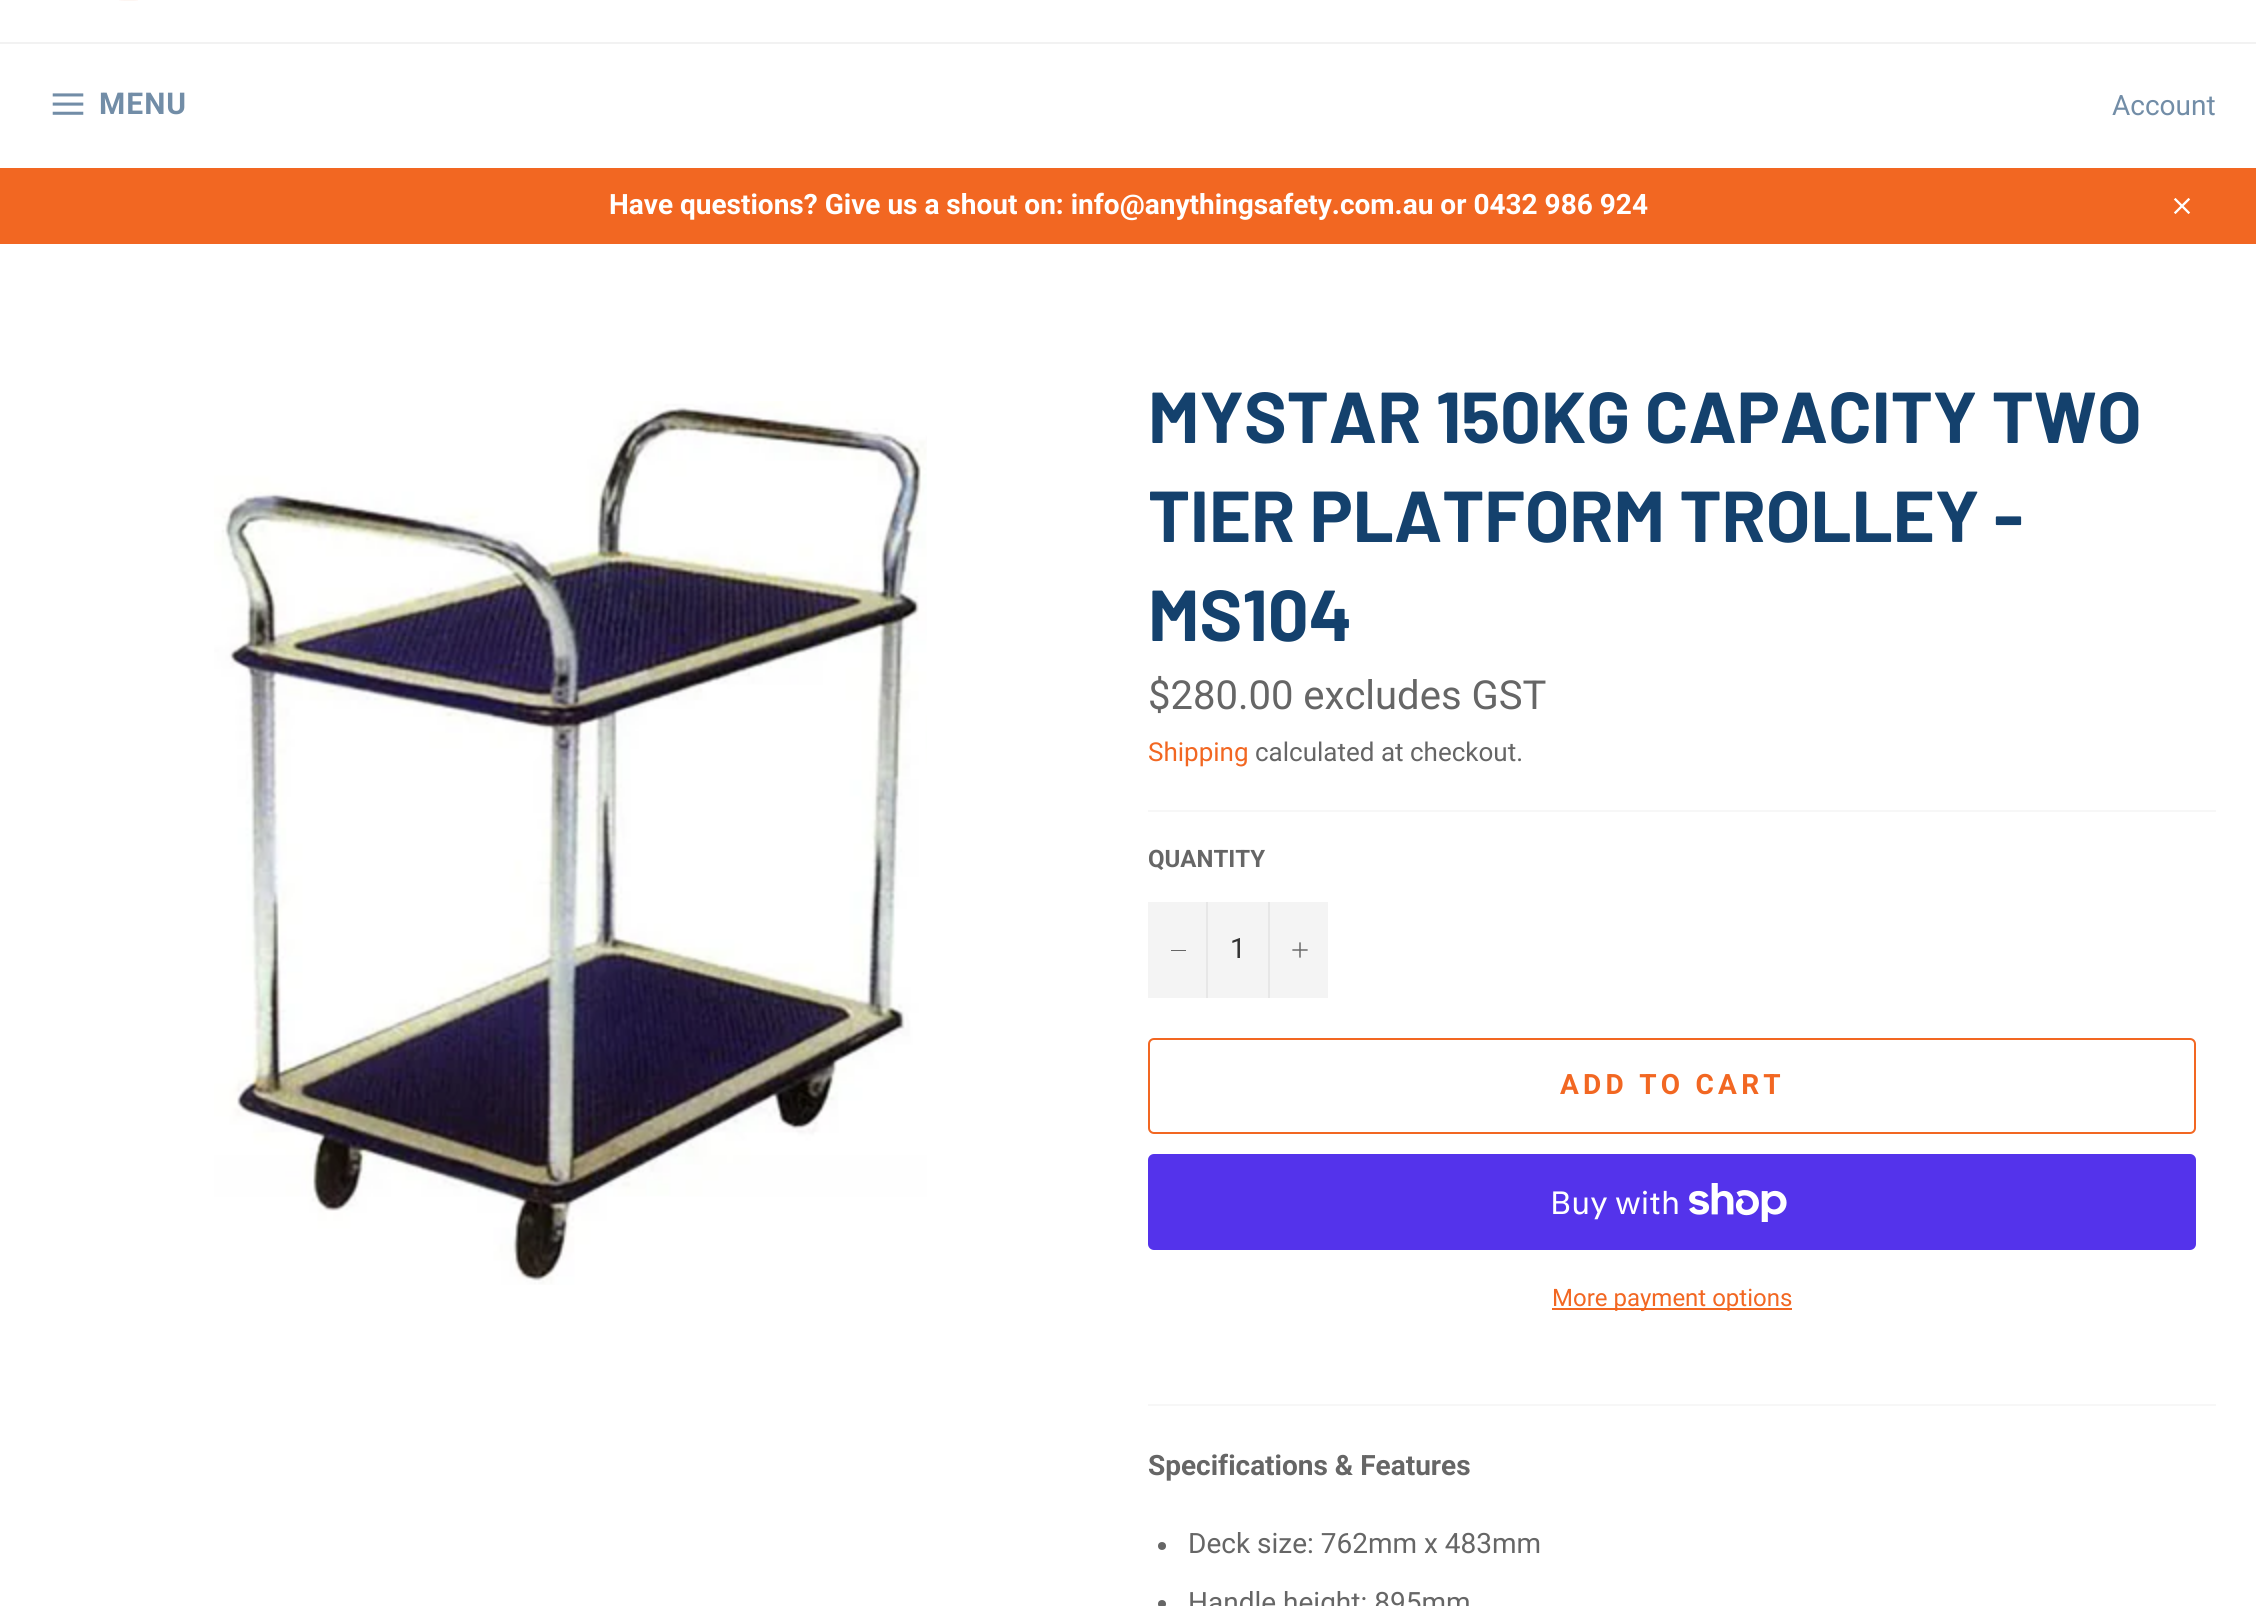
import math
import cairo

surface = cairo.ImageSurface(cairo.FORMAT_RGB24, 2256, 1606)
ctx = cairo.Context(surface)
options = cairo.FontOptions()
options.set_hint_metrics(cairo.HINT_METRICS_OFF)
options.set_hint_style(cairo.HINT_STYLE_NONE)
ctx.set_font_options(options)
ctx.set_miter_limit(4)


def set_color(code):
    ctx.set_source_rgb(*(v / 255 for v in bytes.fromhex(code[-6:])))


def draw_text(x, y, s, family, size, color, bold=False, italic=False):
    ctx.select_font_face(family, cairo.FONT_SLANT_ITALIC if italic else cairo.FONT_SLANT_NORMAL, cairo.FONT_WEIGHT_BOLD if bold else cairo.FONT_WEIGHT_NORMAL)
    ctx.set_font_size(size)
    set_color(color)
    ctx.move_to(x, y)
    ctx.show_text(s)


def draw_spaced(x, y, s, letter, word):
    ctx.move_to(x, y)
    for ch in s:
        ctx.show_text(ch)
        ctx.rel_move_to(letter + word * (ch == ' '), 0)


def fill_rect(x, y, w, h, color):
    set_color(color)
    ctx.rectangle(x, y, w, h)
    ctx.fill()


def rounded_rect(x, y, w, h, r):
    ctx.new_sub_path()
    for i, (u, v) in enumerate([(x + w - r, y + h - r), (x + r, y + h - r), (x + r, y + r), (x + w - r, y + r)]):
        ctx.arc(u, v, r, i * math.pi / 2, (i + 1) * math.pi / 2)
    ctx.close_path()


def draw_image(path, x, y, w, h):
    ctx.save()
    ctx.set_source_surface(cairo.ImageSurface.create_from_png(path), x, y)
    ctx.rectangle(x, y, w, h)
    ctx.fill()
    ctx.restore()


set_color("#ffffff")
ctx.paint()
draw_image("assets/img1.png", 119, 0, 19, 1)
fill_rect(0, 42, 2256, 2, "#f2f2f2")
draw_image("assets/img2.png", 52, 93, 32, 22)
ctx.select_font_face("Roboto", cairo.FONT_SLANT_NORMAL, cairo.FONT_WEIGHT_BOLD)
ctx.set_font_size(30)
set_color("#728da7")
draw_spaced(99, 114, "MENU", 1, 0)
draw_text(2112, 115, "Account", "Roboto", 28, "#728da7")
fill_rect(0, 168, 2256, 76, "#f26722")
draw_text(609, 214, "Have questions? Give us a shout on: info@anythingsafety.com.au or 0432 986 924", "Roboto", 28, "#ffffff", bold=True)
draw_image("assets/img3.png", 2173, 198, 18, 16)
draw_image("assets/img4.png", 214, 401, 713, 884)
draw_text(1148, 443, "MYSTAR 150KG CAPACITY TWO", "Barlow", 72, "#14416d", bold=True)
draw_text(1148, 542, "TIER PLATFORM TROLLEY -", "Barlow", 72, "#14416d", bold=True)
draw_text(1148, 641, "MS104", "Barlow", 72, "#14416d", bold=True)
draw_text(1148, 709, "$280.00 excludes GST", "Roboto", 40, "#666666")
draw_text(1148, 761, "Shipping", "Roboto", 26, "#f26722")
draw_text(1255, 761, "calculated at checkout.", "Roboto", 26, "#666666")
fill_rect(1148, 810, 1068, 2, "#f7f7f7")
draw_text(1148, 867, "QUANTITY", "Roboto", 24, "#666666", bold=True)
fill_rect(1148, 902, 180, 96, "#f4f4f4")
fill_rect(1206, 902, 2, 96, "#e7e7e7")
fill_rect(1171, 950, 15, 1, "#666666")
draw_text(1230, 958, "1", "Roboto", 28, "#333333")
fill_rect(1268, 902, 2, 96, "#e7e7e7")
draw_image("assets/img5.png", 1292, 942, 16, 16)
rounded_rect(1149, 1039, 1046, 94, 5)
set_color("#f26722")
ctx.stroke()
ctx.select_font_face("Roboto", cairo.FONT_SLANT_NORMAL, cairo.FONT_WEIGHT_BOLD)
draw_spaced(1560, 1094, "ADD TO CART", 4.25, 0)
set_color("#5433eb")
rounded_rect(1148, 1154, 1048, 96, 6)
ctx.fill()
draw_text(1550, 1214, "Buy with", "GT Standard", 32, "#ffffff")
draw_image("assets/img6.png", 1689, 1183, 98, 39)
fill_rect(1552, 1308, 240, 2, "#f26722")
draw_text(1552, 1306, "More payment options", "Roboto", 24, "#f26722")
fill_rect(1148, 1404, 1068, 2, "#f7f7f7")
draw_text(1148, 1475, "Specifications & Features", "Roboto", 28, "#666666", bold=True)
ctx.new_path()
ctx.arc(1162, 1546, 4, 0, 2 * math.pi)
ctx.fill()
draw_text(1188, 1553, "Deck size: 762mm x 483mm", "Roboto", 28, "#666666")
ctx.new_path()
ctx.arc(1162, 1604, 4, 0, 2 * math.pi)
ctx.fill()
draw_text(1188, 1612, "Handle height: 895mm", "Roboto", 28, "#666666")
surface.write_to_png("output.png")
